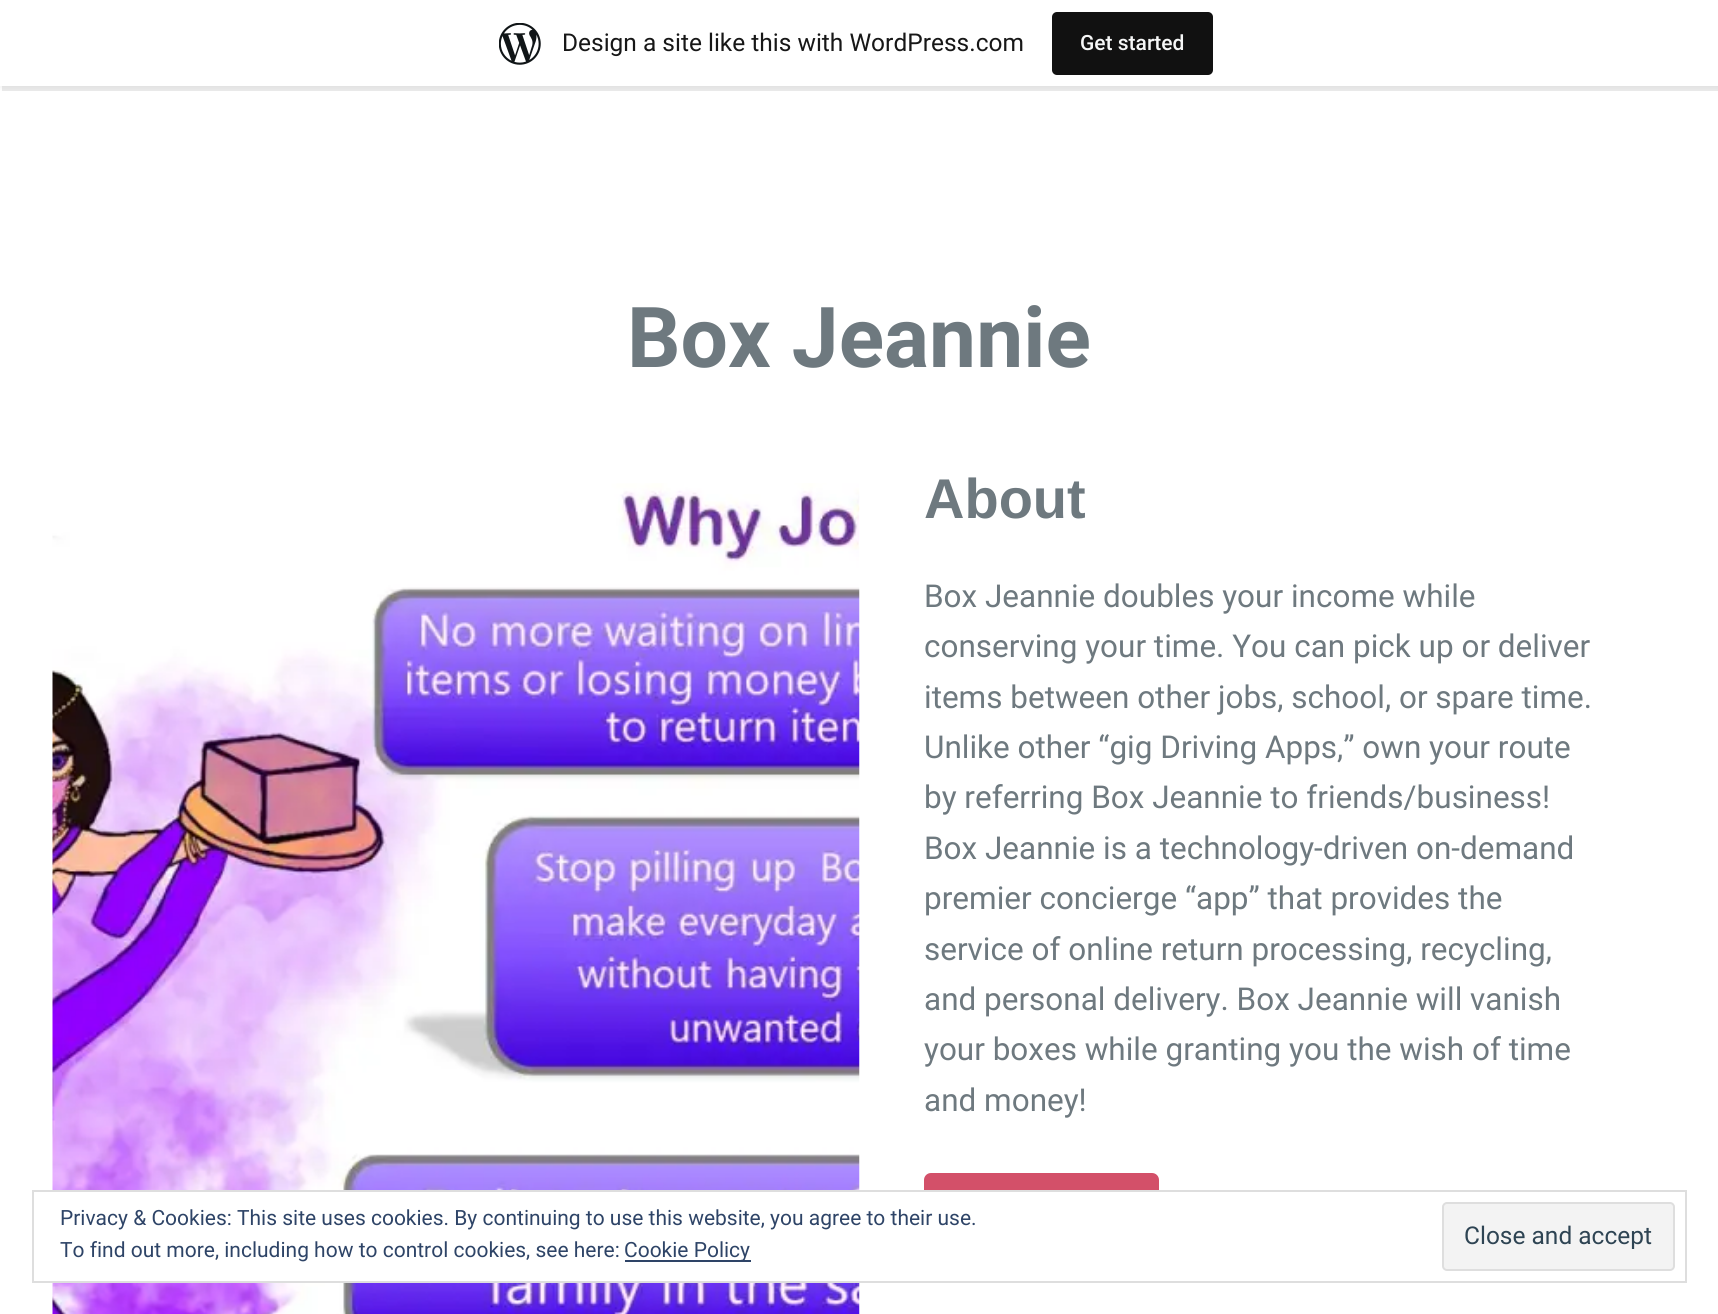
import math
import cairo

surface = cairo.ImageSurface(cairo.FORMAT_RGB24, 1718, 1314)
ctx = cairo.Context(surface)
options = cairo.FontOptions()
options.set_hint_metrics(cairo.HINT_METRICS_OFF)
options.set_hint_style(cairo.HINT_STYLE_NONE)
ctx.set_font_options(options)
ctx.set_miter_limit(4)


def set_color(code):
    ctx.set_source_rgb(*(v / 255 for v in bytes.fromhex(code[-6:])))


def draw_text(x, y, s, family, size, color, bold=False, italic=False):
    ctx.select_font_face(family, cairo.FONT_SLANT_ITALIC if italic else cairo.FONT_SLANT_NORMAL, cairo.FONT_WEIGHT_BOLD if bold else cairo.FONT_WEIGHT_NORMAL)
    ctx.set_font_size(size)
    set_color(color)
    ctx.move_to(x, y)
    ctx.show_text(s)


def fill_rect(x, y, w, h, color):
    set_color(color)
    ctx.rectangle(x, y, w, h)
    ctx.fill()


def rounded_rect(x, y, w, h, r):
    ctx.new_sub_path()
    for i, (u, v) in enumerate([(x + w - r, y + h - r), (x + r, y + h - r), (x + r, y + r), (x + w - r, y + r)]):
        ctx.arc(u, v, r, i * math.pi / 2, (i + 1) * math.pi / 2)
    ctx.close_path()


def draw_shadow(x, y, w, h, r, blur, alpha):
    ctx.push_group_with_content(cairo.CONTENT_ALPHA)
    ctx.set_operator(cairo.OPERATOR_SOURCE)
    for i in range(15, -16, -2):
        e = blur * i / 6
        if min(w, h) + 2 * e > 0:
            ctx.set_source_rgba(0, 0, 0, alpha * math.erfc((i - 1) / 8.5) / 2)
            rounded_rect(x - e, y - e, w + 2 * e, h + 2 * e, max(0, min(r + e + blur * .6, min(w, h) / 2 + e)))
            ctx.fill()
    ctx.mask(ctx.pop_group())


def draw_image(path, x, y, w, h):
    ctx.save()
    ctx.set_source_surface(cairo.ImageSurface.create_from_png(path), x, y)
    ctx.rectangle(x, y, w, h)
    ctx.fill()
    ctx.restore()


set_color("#ffffff")
ctx.paint()
set_color("#000000")
draw_shadow(0, 2, 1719, 86, 0, 2, 0.05)
ctx.set_source_rgba(0, 0, 0, 0.08)
ctx.new_path()
ctx.move_to(2, 86)
ctx.line_to(2, 91)
ctx.line_to(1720, 91)
ctx.line_to(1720, 5)
ctx.line_to(1718, 5)
ctx.line_to(1718, 86)
ctx.close_path()
ctx.fill()
fill_rect(0, 0, 1718, 86, "#ffffff")
draw_image("assets/img1.png", 499, 23, 42, 42)
draw_text(562, 51, "Design a site like this with WordPress.com", "Roboto", 24.5, "#171717")
set_color("#111111")
rounded_rect(1052, 12, 161, 63, 5)
ctx.fill()
draw_text(1080, 50, "Get started", "Roboto Medium", 21, "#f6f7f7")
draw_text(627, 367, "Box Jeannie", "Roboto", 84, "#6e797f", bold=True)
draw_image("assets/img2.png", 52, 483, 808, 831)
draw_text(924, 518, "About", "Liberation Sans", 56, "#6e797f", bold=True)
draw_text(924, 607, "Box Jeannie doubles your income while", "Roboto", 31.5, "#6e797f")
draw_text(924, 657, "conserving your time. You can pick up or deliver", "Roboto", 31.5, "#6e797f")
draw_text(924, 708, "items between other jobs, school, or spare time.", "Roboto", 31.5, "#6e797f")
draw_text(924, 758, "Unlike other “gig Driving Apps,” own your route", "Roboto", 31.5, "#6e797f")
draw_text(924, 808, "by referring Box Jeannie to friends/business!", "Roboto", 31.5, "#6e797f")
draw_text(924, 859, "Box Jeannie is a technology-driven on-demand", "Roboto", 31.5, "#6e797f")
draw_text(924, 909, "premier concierge “app” that provides the", "Roboto", 31.5, "#6e797f")
draw_text(924, 960, "service of online return processing, recycling,", "Roboto", 31.5, "#6e797f")
draw_text(924, 1010, "and personal delivery. Box Jeannie will vanish", "Roboto", 31.5, "#6e797f")
draw_text(924, 1060, "your boxes while granting you the wish of time", "Roboto", 31.5, "#6e797f")
draw_text(924, 1111, "and money!", "Roboto", 31.5, "#6e797f")
set_color("#d35069")
rounded_rect(924, 1173, 235, 105, 7)
ctx.fill()
fill_rect(52, 1192, 1107, 89, "#ffffff")
ctx.rectangle(33, 1191, 1653, 91)
set_color("#dedede")
ctx.stroke()
draw_text(60, 1225, "Privacy & Cookies: This site uses cookies. By continuing to use this website, you agree to their use.", "Roboto", 21, "#2e4467")
set_color("#f3f3f3")
rounded_rect(1443, 1203, 231, 67, 4)
ctx.fill_preserve()
set_color("#dedede")
ctx.stroke()
draw_text(1464, 1244, "Close and accept", "Roboto", 24.5, "#2e4453")
draw_text(60, 1257, "To find out more, including how to control cookies, see here:", "Roboto", 21, "#2e4467")
fill_rect(625, 1260, 126, 2, "#2e4467")
draw_text(624, 1257, "Cookie Policy", "Roboto", 21, "#2e4467")
surface.write_to_png("output.png")
